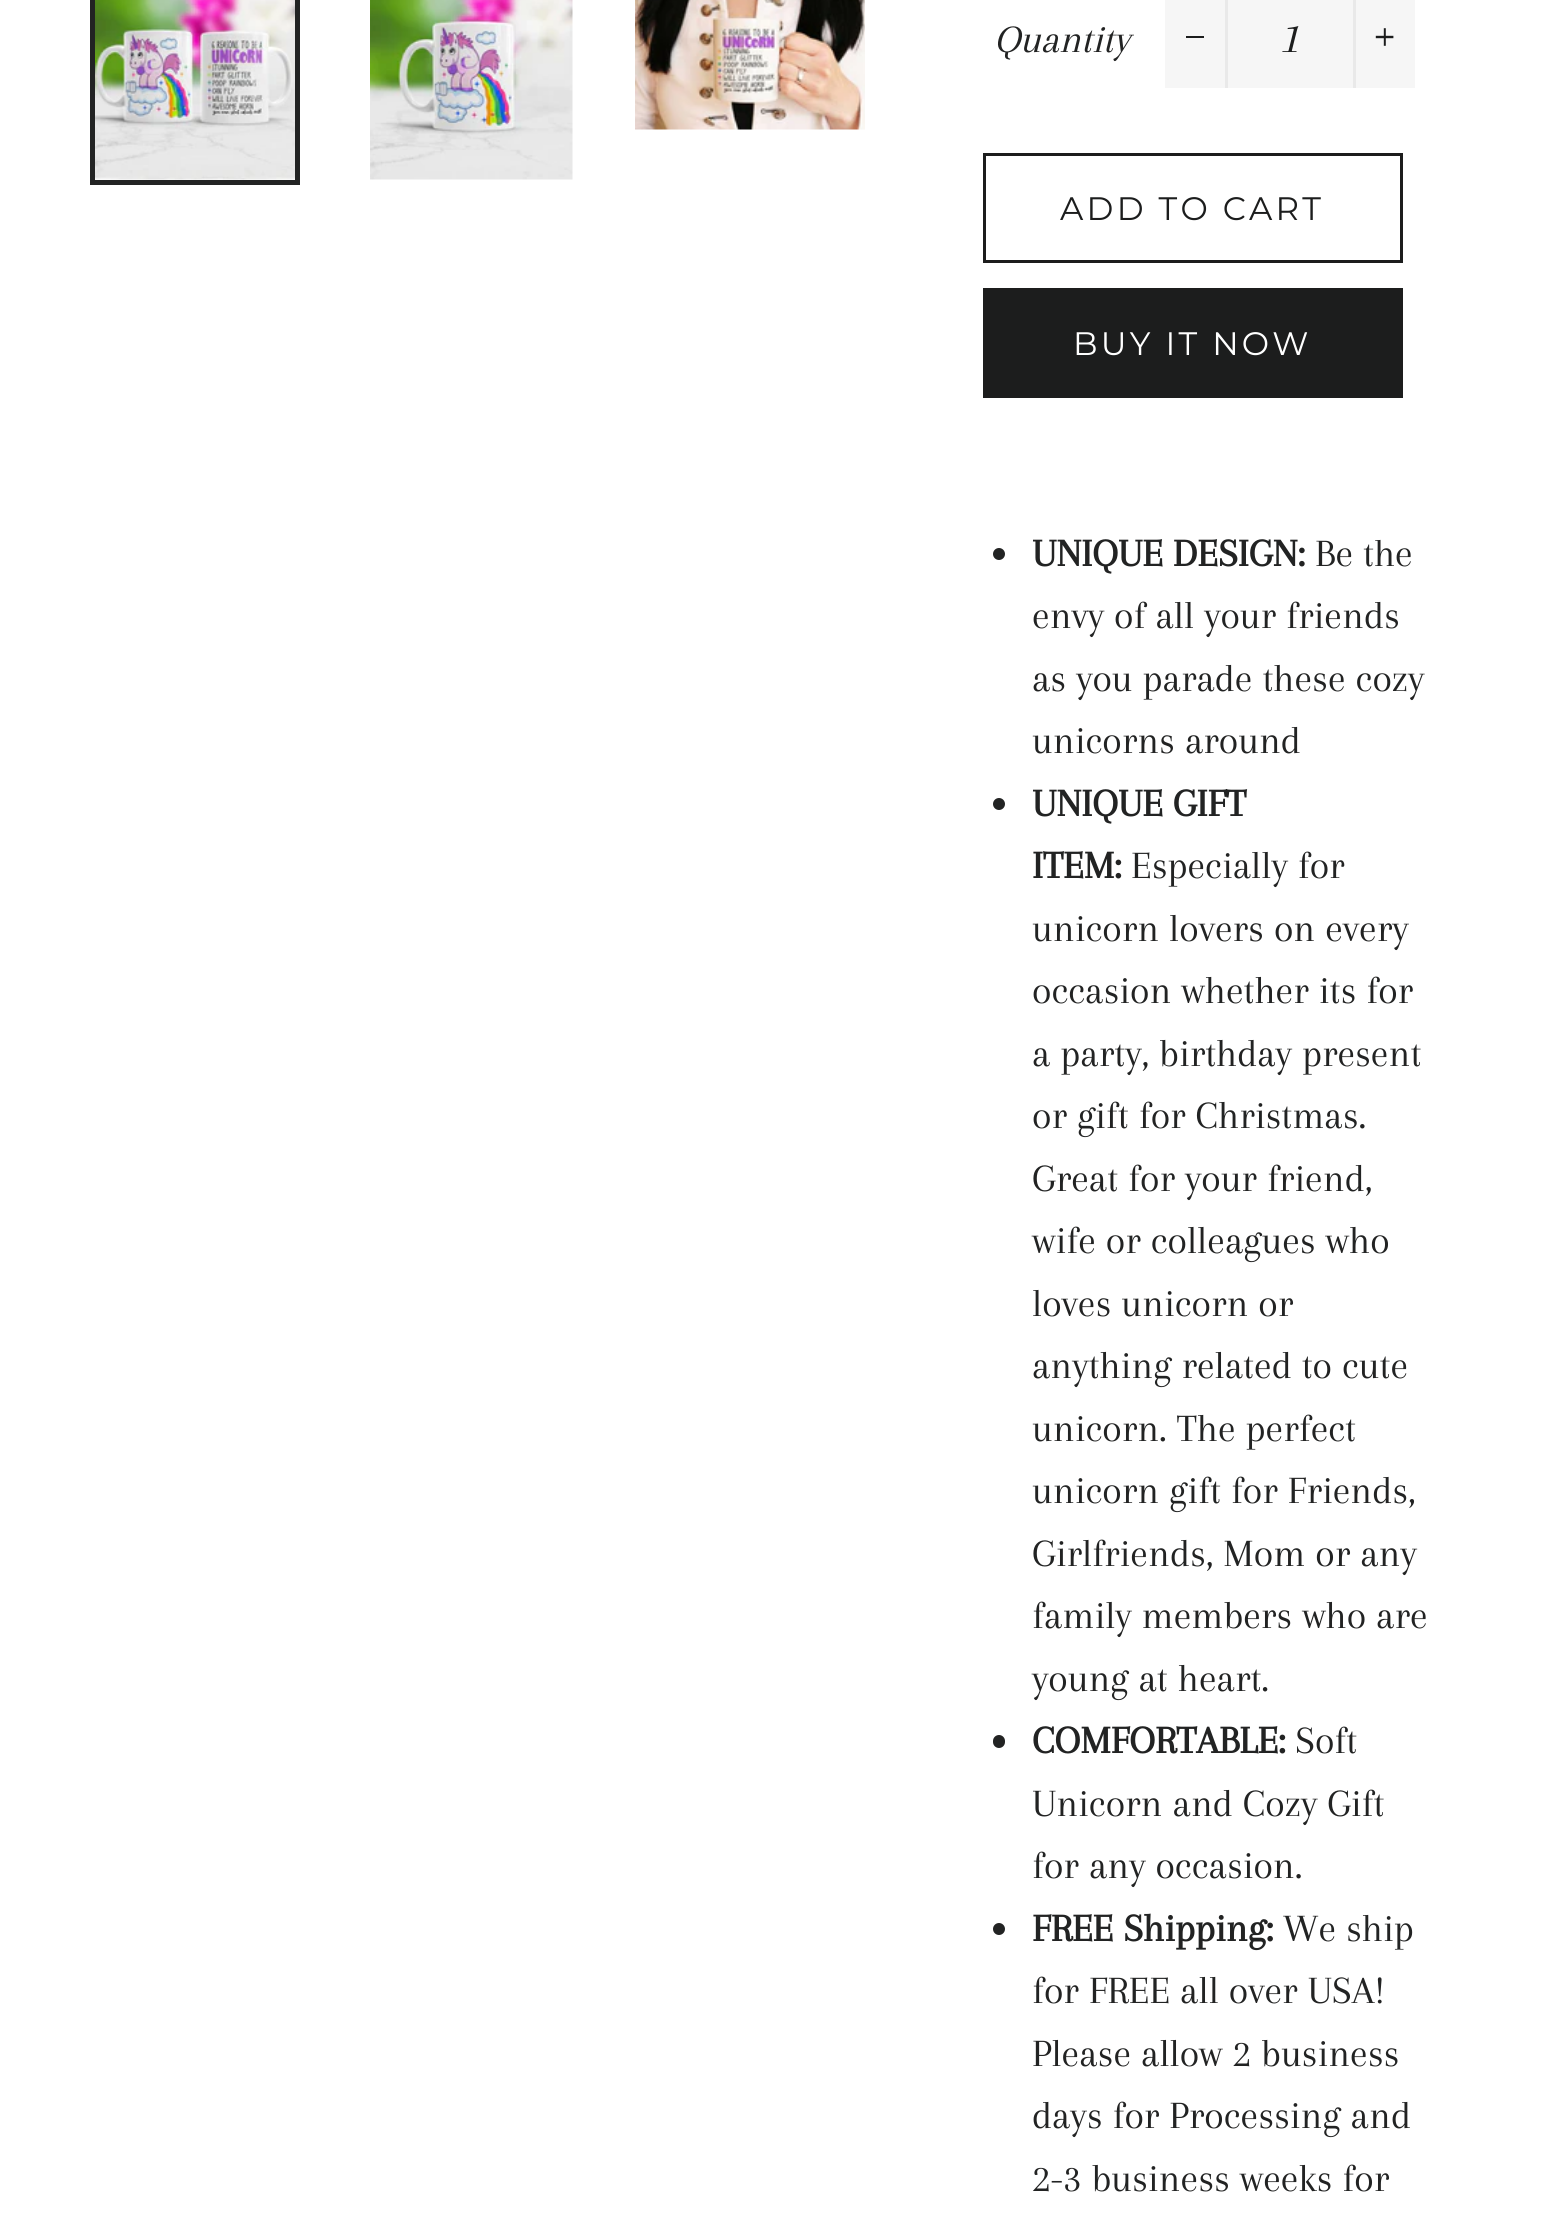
import math
import cairo

surface = cairo.ImageSurface(cairo.FORMAT_RGB24, 1564, 2225)
ctx = cairo.Context(surface)
options = cairo.FontOptions()
options.set_hint_metrics(cairo.HINT_METRICS_OFF)
options.set_hint_style(cairo.HINT_STYLE_NONE)
ctx.set_font_options(options)
ctx.set_miter_limit(4)


def set_color(code):
    ctx.set_source_rgb(*(v / 255 for v in bytes.fromhex(code[-6:])))


def draw_text(x, y, s, family, size, color, bold=False, italic=False):
    ctx.select_font_face(family, cairo.FONT_SLANT_ITALIC if italic else cairo.FONT_SLANT_NORMAL, cairo.FONT_WEIGHT_BOLD if bold else cairo.FONT_WEIGHT_NORMAL)
    ctx.set_font_size(size)
    set_color(color)
    ctx.move_to(x, y)
    ctx.show_text(s)


def draw_spaced(x, y, s, letter, word):
    ctx.move_to(x, y)
    for ch in s:
        ctx.show_text(ch)
        ctx.rel_move_to(letter + word * (ch == ' '), 0)


def fill_rect(x, y, w, h, color):
    set_color(color)
    ctx.rectangle(x, y, w, h)
    ctx.fill()


def rounded_rect(x, y, w, h, r):
    ctx.new_sub_path()
    for i, (u, v) in enumerate([(x + w - r, y + h - r), (x + r, y + h - r), (x + r, y + r), (x + w - r, y + r)]):
        ctx.arc(u, v, r, i * math.pi / 2, (i + 1) * math.pi / 2)
    ctx.close_path()


def draw_image(path, x, y, w, h):
    ctx.save()
    ctx.set_source_surface(cairo.ImageSurface.create_from_png(path), x, y)
    ctx.rectangle(x, y, w, h)
    ctx.fill()
    ctx.restore()


set_color("#ffffff")
ctx.paint()
ctx.rectangle(92.5, -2.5, 205, 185)
set_color("#222323")
ctx.set_line_width(5)
ctx.stroke()
draw_image("assets/img1.png", 95, 0, 200, 180)
draw_image("assets/img2.png", 370, 0, 203, 180)
draw_image("assets/img3.png", 635, 0, 230, 130)
draw_text(994, 52, "Quantity", "Arapey", 40, "#222323", italic=True)
fill_rect(1165, 0, 250, 88, "#f6f6f6")
fill_rect(1225, 0, 3, 88, "#e9e9e9")
fill_rect(1186, 36, 18, 2, "#1c1d1d")
draw_text(1279, 52, "1", "Arapey", 45, "#1c1d1d", italic=True)
fill_rect(1353, 0, 3, 88, "#e9e9e9")
draw_image("assets/img4.png", 1375, 28, 19, 18)
ctx.rectangle(984.5, 154.5, 417, 107)
set_color("#1c1d1d")
ctx.set_line_width(3)
ctx.stroke()
ctx.select_font_face("Montserrat Thin")
ctx.set_font_size(32.5)
draw_spaced(1060, 220, "ADD TO CART", 3.25, 0)
fill_rect(983, 288, 420, 110, "#1c1d1d")
set_color("#ffffff")
draw_spaced(1073, 355, "BUY IT NOW", 3.25, 0)
set_color("#222323")
ctx.new_path()
ctx.arc(999, 554, 6, 0, 2 * math.pi)
ctx.fill()
draw_text(1032, 566, "UNIQUE DESIGN:", "Arapey", 40, "#222323", bold=True)
draw_text(1315, 566, "Be the", "Arapey", 40, "#222323")
draw_text(1032, 628, "envy of all your friends", "Arapey", 40, "#222323")
draw_text(1032, 691, "as you parade these cozy", "Arapey", 40, "#222323")
draw_text(1032, 753, "unicorns around", "Arapey", 40, "#222323")
ctx.new_path()
ctx.arc(999, 804, 6, 0, 2 * math.pi)
ctx.fill()
draw_text(1032, 816, "UNIQUE GIFT", "Arapey", 40, "#222323", bold=True)
draw_text(1032, 878, "ITEM:", "Arapey", 40, "#222323", bold=True)
draw_text(1131, 878, "Especially for", "Arapey", 40, "#222323")
draw_text(1032, 941, "unicorn lovers on every", "Arapey", 40, "#222323")
draw_text(1032, 1003, "occasion whether its for", "Arapey", 40, "#222323")
draw_text(1032, 1066, "a party, birthday present", "Arapey", 40, "#222323")
draw_text(1032, 1128, "or gift for Christmas.", "Arapey", 40, "#222323")
draw_text(1032, 1191, "Great for your friend,", "Arapey", 40, "#222323")
draw_text(1032, 1253, "wife or colleagues who", "Arapey", 40, "#222323")
draw_text(1032, 1316, "loves unicorn or", "Arapey", 40, "#222323")
draw_text(1032, 1378, "anything related to cute", "Arapey", 40, "#222323")
draw_text(1032, 1441, "unicorn. The perfect", "Arapey", 40, "#222323")
draw_text(1032, 1503, "unicorn gift for Friends,", "Arapey", 40, "#222323")
draw_text(1032, 1566, "Girlfriends, Mom or any", "Arapey", 40, "#222323")
draw_text(1032, 1628, "family members who are", "Arapey", 40, "#222323")
draw_text(1032, 1691, "young at heart.", "Arapey", 40, "#222323")
rounded_rect(993, 1735, 12, 13, 6)
ctx.fill()
draw_text(1032, 1753, "COMFORTABLE:", "Arapey", 40, "#222323", bold=True)
draw_text(1295, 1753, "Soft", "Arapey", 40, "#222323")
draw_text(1032, 1816, "Unicorn and Cozy Gift", "Arapey", 40, "#222323")
draw_text(1032, 1878, "for any occasion.", "Arapey", 40, "#222323")
ctx.new_path()
ctx.arc(999, 1929, 6, 0, 2 * math.pi)
ctx.fill()
draw_text(1032, 1941, "FREE Shipping:", "Arapey", 40, "#222323", bold=True)
draw_text(1283, 1941, "We ship", "Arapey", 40, "#222323")
draw_text(1032, 2003, "for FREE all over USA!", "Arapey", 40, "#222323")
draw_text(1032, 2066, "Please allow 2 business", "Arapey", 40, "#222323")
draw_text(1032, 2128, "days for Processing and", "Arapey", 40, "#222323")
draw_text(1032, 2191, "2-3 business weeks for", "Arapey", 40, "#222323")
surface.write_to_png("output.png")
